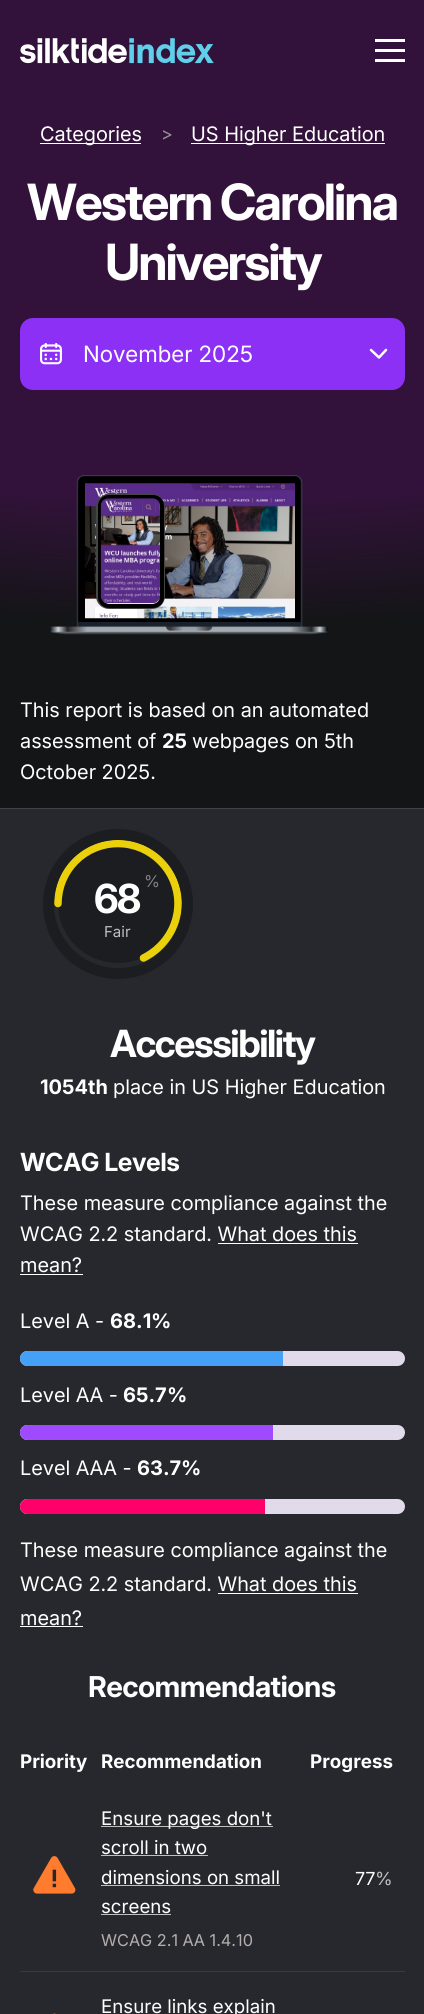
import math
import cairo

surface = cairo.ImageSurface(cairo.FORMAT_RGB24, 424, 2014)
ctx = cairo.Context(surface)
options = cairo.FontOptions()
options.set_hint_metrics(cairo.HINT_METRICS_OFF)
options.set_hint_style(cairo.HINT_STYLE_NONE)
ctx.set_font_options(options)
ctx.set_miter_limit(4)


def set_color(code):
    ctx.set_source_rgb(*(v / 255 for v in bytes.fromhex(code[-6:])))


def draw_text(x, y, s, family, size, color, bold=False, italic=False):
    ctx.select_font_face(family, cairo.FONT_SLANT_ITALIC if italic else cairo.FONT_SLANT_NORMAL, cairo.FONT_WEIGHT_BOLD if bold else cairo.FONT_WEIGHT_NORMAL)
    ctx.set_font_size(size)
    set_color(color)
    ctx.move_to(x, y)
    ctx.show_text(s)


def draw_spaced(x, y, s, letter, word):
    ctx.move_to(x, y)
    for ch in s:
        ctx.show_text(ch)
        ctx.rel_move_to(letter + word * (ch == ' '), 0)


def fill_rect(x, y, w, h, color):
    set_color(color)
    ctx.rectangle(x, y, w, h)
    ctx.fill()


def rounded_rect(x, y, w, h, r):
    ctx.new_sub_path()
    for i, (u, v) in enumerate([(x + w - r, y + h - r), (x + r, y + h - r), (x + r, y + r), (x + w - r, y + r)]):
        ctx.arc(u, v, r, i * math.pi / 2, (i + 1) * math.pi / 2)
    ctx.close_path()


def draw_image(path, x, y, w, h):
    ctx.save()
    ctx.set_source_surface(cairo.ImageSurface.create_from_png(path), x, y)
    ctx.rectangle(x, y, w, h)
    ctx.fill()
    ctx.restore()


set_color("#ffffff")
ctx.paint()
gradient = cairo.RadialGradient(0, 0, 0, 0, 0, 1)
gradient.set_matrix(cairo.Matrix(1 / 1250, 0, 0, 1 / 625, -1 * 213 / 1250, -1 * 0 / 625))
gradient.add_color_stop_rgba(0, 0.196, 0.071, 0.227, 1)
gradient.add_color_stop_rgba(0.8, 0.196, 0.071, 0.227, 1)
gradient.add_color_stop_rgba(1, 0.078, 0.082, 0.09, 1)
ctx.set_source(gradient)
ctx.rectangle(0, 0, 424, 808)
ctx.fill()
draw_image("assets/img1.png", 20, 38, 194, 26)
fill_rect(375, 49, 30, 3, "#ffffff")
fill_rect(375, 39, 30, 3, "#ffffff")
fill_rect(375, 59, 30, 3, "#ffffff")
fill_rect(40, 143, 101, 1, "#ffffff")
draw_text(40, 141, "Categories", "Inter", 20, "#ffffff")
draw_text(161, 140, ">", "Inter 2", 18, "#909296")
fill_rect(191, 143, 194, 1, "#ffffff")
draw_text(191, 141, "US Higher Education", "Inter", 20, "#ffffff")
ctx.select_font_face("Inter", cairo.FONT_SLANT_NORMAL, cairo.FONT_WEIGHT_BOLD)
ctx.set_font_size(50)
draw_spaced(27, 220, "Western Carolina", -2, 0)
draw_spaced(105, 280, "University", -2, 0)
set_color("#8c30f5")
rounded_rect(20, 318, 385, 72, 13)
ctx.fill()
draw_image("assets/img2.png", 40, 343, 22, 22)
draw_text(83, 362, "November 2025", "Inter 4", 22.5, "#ffffff")
ctx.new_path()
ctx.move_to(371, 350)
ctx.line_to(379, 357.5)
ctx.line_to(386, 350)
ctx.set_line_width(2.5)
ctx.set_line_cap(cairo.LINE_CAP_ROUND)
ctx.set_line_join(cairo.LINE_JOIN_ROUND)
ctx.stroke()
draw_image("assets/img3.png", 50, 475, 278, 160)
draw_image("assets/img4.png", 85, 483, 210, 136)
rounded_rect(98.5, 496.5, 64, 110, 10.5)
set_color("#454545")
ctx.set_line_width(5)
ctx.set_line_cap(cairo.LINE_CAP_BUTT)
ctx.set_line_join(cairo.LINE_JOIN_MITER)
ctx.stroke()
rounded_rect(100, 497, 62, 109, 9)
set_color("#000000")
ctx.set_line_width(4)
ctx.stroke()
draw_image("assets/img5.png", 100, 498, 60, 106)
draw_text(20, 717, "This report is based on an automated", "Inter", 20, "#ffffff")
draw_text(20, 748, "assessment of", "Inter", 20, "#ffffff")
draw_text(162, 748, "25", "Inter 2", 20, "#ffffff", bold=True)
draw_text(192, 748, "webpages on 5th", "Inter", 20, "#ffffff")
draw_text(20, 779, "October 2025.", "Inter", 20, "#ffffff")
fill_rect(0, 809, 424, 1205, "#27282d")
fill_rect(0, 808, 424, 1, "#414246")
set_color("#1c1d21")
ctx.new_path()
ctx.move_to(178, 903)
ctx.curve_to(178, 870, 151, 843, 118, 843)
ctx.curve_to(85, 843, 58, 870, 58, 903)
ctx.curve_to(58, 937, 85, 963, 118, 963)
ctx.curve_to(151, 963, 178, 937, 178, 903)
ctx.close_path()
ctx.fill()
ctx.new_path()
ctx.move_to(178, 903.5)
ctx.curve_to(178, 859.5, 131, 831, 92, 849)
set_color("#373a40")
ctx.set_line_width(7.5)
ctx.stroke()
ctx.new_path()
ctx.move_to(58, 903.5)
ctx.curve_to(58, 870.5, 84.5, 843.5, 118, 843.5)
ctx.curve_to(151, 843.5, 178, 870.5, 178, 903.5)
ctx.curve_to(178, 927.5, 163.5, 948, 143.5, 958)
set_color("#ebd10c")
ctx.set_line_cap(cairo.LINE_CAP_ROUND)
ctx.stroke()
draw_text(144, 887, "%", "Inter 2", 16.25, "#828282")
ctx.select_font_face("Inter", cairo.FONT_SLANT_NORMAL, cairo.FONT_WEIGHT_BOLD)
ctx.set_font_size(40)
set_color("#ffffff")
draw_spaced(94, 913, "68", -2, 0)
draw_text(104, 937, "Fair", "Inter 2", 15, "#bebfc0")
ctx.new_path()
ctx.arc(118, 904, 69.5, 0, 2 * math.pi)
set_color("#1c1d21")
ctx.set_line_width(11)
ctx.set_line_cap(cairo.LINE_CAP_BUTT)
ctx.stroke()
ctx.select_font_face("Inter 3", cairo.FONT_SLANT_NORMAL, cairo.FONT_WEIGHT_BOLD)
ctx.set_font_size(37.5)
set_color("#ffffff")
draw_spaced(110, 1057, "Accessibility", -1.5, 0)
draw_text(40, 1094, "1054th", "Inter 2", 20, "#ffffff", bold=True)
draw_text(113, 1094, "place in US Higher Education", "Inter", 20, "#ffffff")
ctx.select_font_face("Inter 4", cairo.FONT_SLANT_NORMAL, cairo.FONT_WEIGHT_BOLD)
ctx.set_font_size(25)
draw_spaced(20, 1171, "WCAG Levels", -0.5, 0)
draw_text(20, 1210, "These measure compliance against the", "Inter", 20, "#ffffff")
draw_text(20, 1241, "WCAG 2.2 standard. What does this", "Inter", 20, "#ffffff")
draw_text(20, 1272, "mean?", "Inter", 20, "#ffffff")
fill_rect(218, 1243, 140, 1, "#ffffff")
fill_rect(20, 1274, 63, 1, "#ffffff")
draw_text(20, 1328, "Level A -", "Inter", 20, "#ffffff")
draw_text(110, 1328, "68.1", "Inter 2", 20, "#ffffff", bold=True)
draw_text(151, 1328, "%", "Inter 2", 20, "#ffffff", bold=True)
set_color("#e1daea")
rounded_rect(20, 1351, 385, 15, 7.5)
ctx.fill()
set_color("#45a1f7")
ctx.new_path()
ctx.move_to(27.5, 1351)
ctx.line_to(283, 1351)
ctx.line_to(283, 1366)
ctx.line_to(27.5, 1366)
ctx.curve_to(23.5, 1366, 20, 1362.5, 20, 1358.5)
ctx.curve_to(20, 1354.5, 23.5, 1351, 27.5, 1351)
ctx.close_path()
ctx.fill()
draw_text(20, 1402, "Level AA -", "Inter", 20, "#ffffff")
draw_text(123, 1402, "65.7", "Inter 2", 20, "#ffffff", bold=True)
draw_text(167, 1402, "%", "Inter 2", 20, "#ffffff", bold=True)
set_color("#e1daea")
rounded_rect(20, 1425, 385, 15, 7.5)
ctx.fill()
set_color("#9f4aff")
ctx.new_path()
ctx.move_to(27.5, 1425)
ctx.line_to(273, 1425)
ctx.line_to(273, 1440)
ctx.line_to(27.5, 1440)
ctx.curve_to(23.5, 1440, 20, 1436.5, 20, 1432.5)
ctx.curve_to(20, 1428.5, 23.5, 1425, 27.5, 1425)
ctx.close_path()
ctx.fill()
draw_text(20, 1475, "Level AAA -", "Inter", 20, "#ffffff")
draw_text(137, 1475, "63.7", "Inter 2", 20, "#ffffff", bold=True)
draw_text(181, 1475, "%", "Inter 2", 20, "#ffffff", bold=True)
set_color("#e1daea")
rounded_rect(20, 1499, 385, 15, 7.5)
ctx.fill()
set_color("#ff006b")
ctx.new_path()
ctx.move_to(27.5, 1499)
ctx.line_to(265, 1499)
ctx.line_to(265, 1514)
ctx.line_to(27.5, 1514)
ctx.curve_to(23.5, 1514, 20, 1510.5, 20, 1506.5)
ctx.curve_to(20, 1502.5, 23.5, 1499, 27.5, 1499)
ctx.close_path()
ctx.fill()
draw_text(20, 1557, "These measure compliance against the", "Inter", 20, "#ffffff")
draw_text(20, 1591, "WCAG 2.2 standard. What does this", "Inter", 20, "#ffffff")
draw_text(20, 1625, "mean?", "Inter", 20, "#ffffff")
fill_rect(218, 1593, 140, 1, "#ffffff")
fill_rect(20, 1626, 63, 1, "#ffffff")
ctx.select_font_face("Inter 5", cairo.FONT_SLANT_NORMAL, cairo.FONT_WEIGHT_BOLD)
ctx.set_font_size(28.75)
draw_spaced(88, 1697, "Recommendations", -0.6, 0)
draw_text(20, 1768, "Priority", "Inter 2", 18.75, "#ffffff", bold=True)
draw_text(101, 1768, "Recommendation", "Inter 2", 18.75, "#ffffff", bold=True)
draw_text(310, 1768, "Progress", "Inter 2", 18.75, "#ffffff", bold=True)
draw_image("assets/img6.png", 33, 1856, 43, 38)
fill_rect(101, 1826, 172, 1, "#bebfc0")
draw_text(101, 1825, "Ensure pages don't", "Inter 3", 18.75, "#ffffff")
draw_text(101, 1854, "scroll in two", "Inter 3", 18.75, "#ffffff")
fill_rect(101, 1855, 107, 1, "#bebfc0")
draw_text(101, 1884, "dimensions on small", "Inter 3", 18.75, "#ffffff")
fill_rect(101, 1885, 179, 1, "#bebfc0")
draw_text(101, 1913, "screens", "Inter 3", 18.75, "#ffffff")
fill_rect(101, 1914, 70, 1, "#bebfc0")
draw_text(101, 1946, "WCAG 2.1 AA 1.4.10", "Inter 2", 16.25, "#b4aeae")
draw_text(355, 1885, "77", "Inter 2", 18, "#ffffff")
draw_text(375, 1885, "%", "Inter 2", 18, "#bebfc0")
fill_rect(20, 1971, 385, 1, "#373a40")
draw_image("assets/img7.png", 53, 2013, 3, 1)
draw_text(101, 2013, "Ensure links explain", "Inter 3", 18.75, "#ffffff")
surface.write_to_png("output.png")
